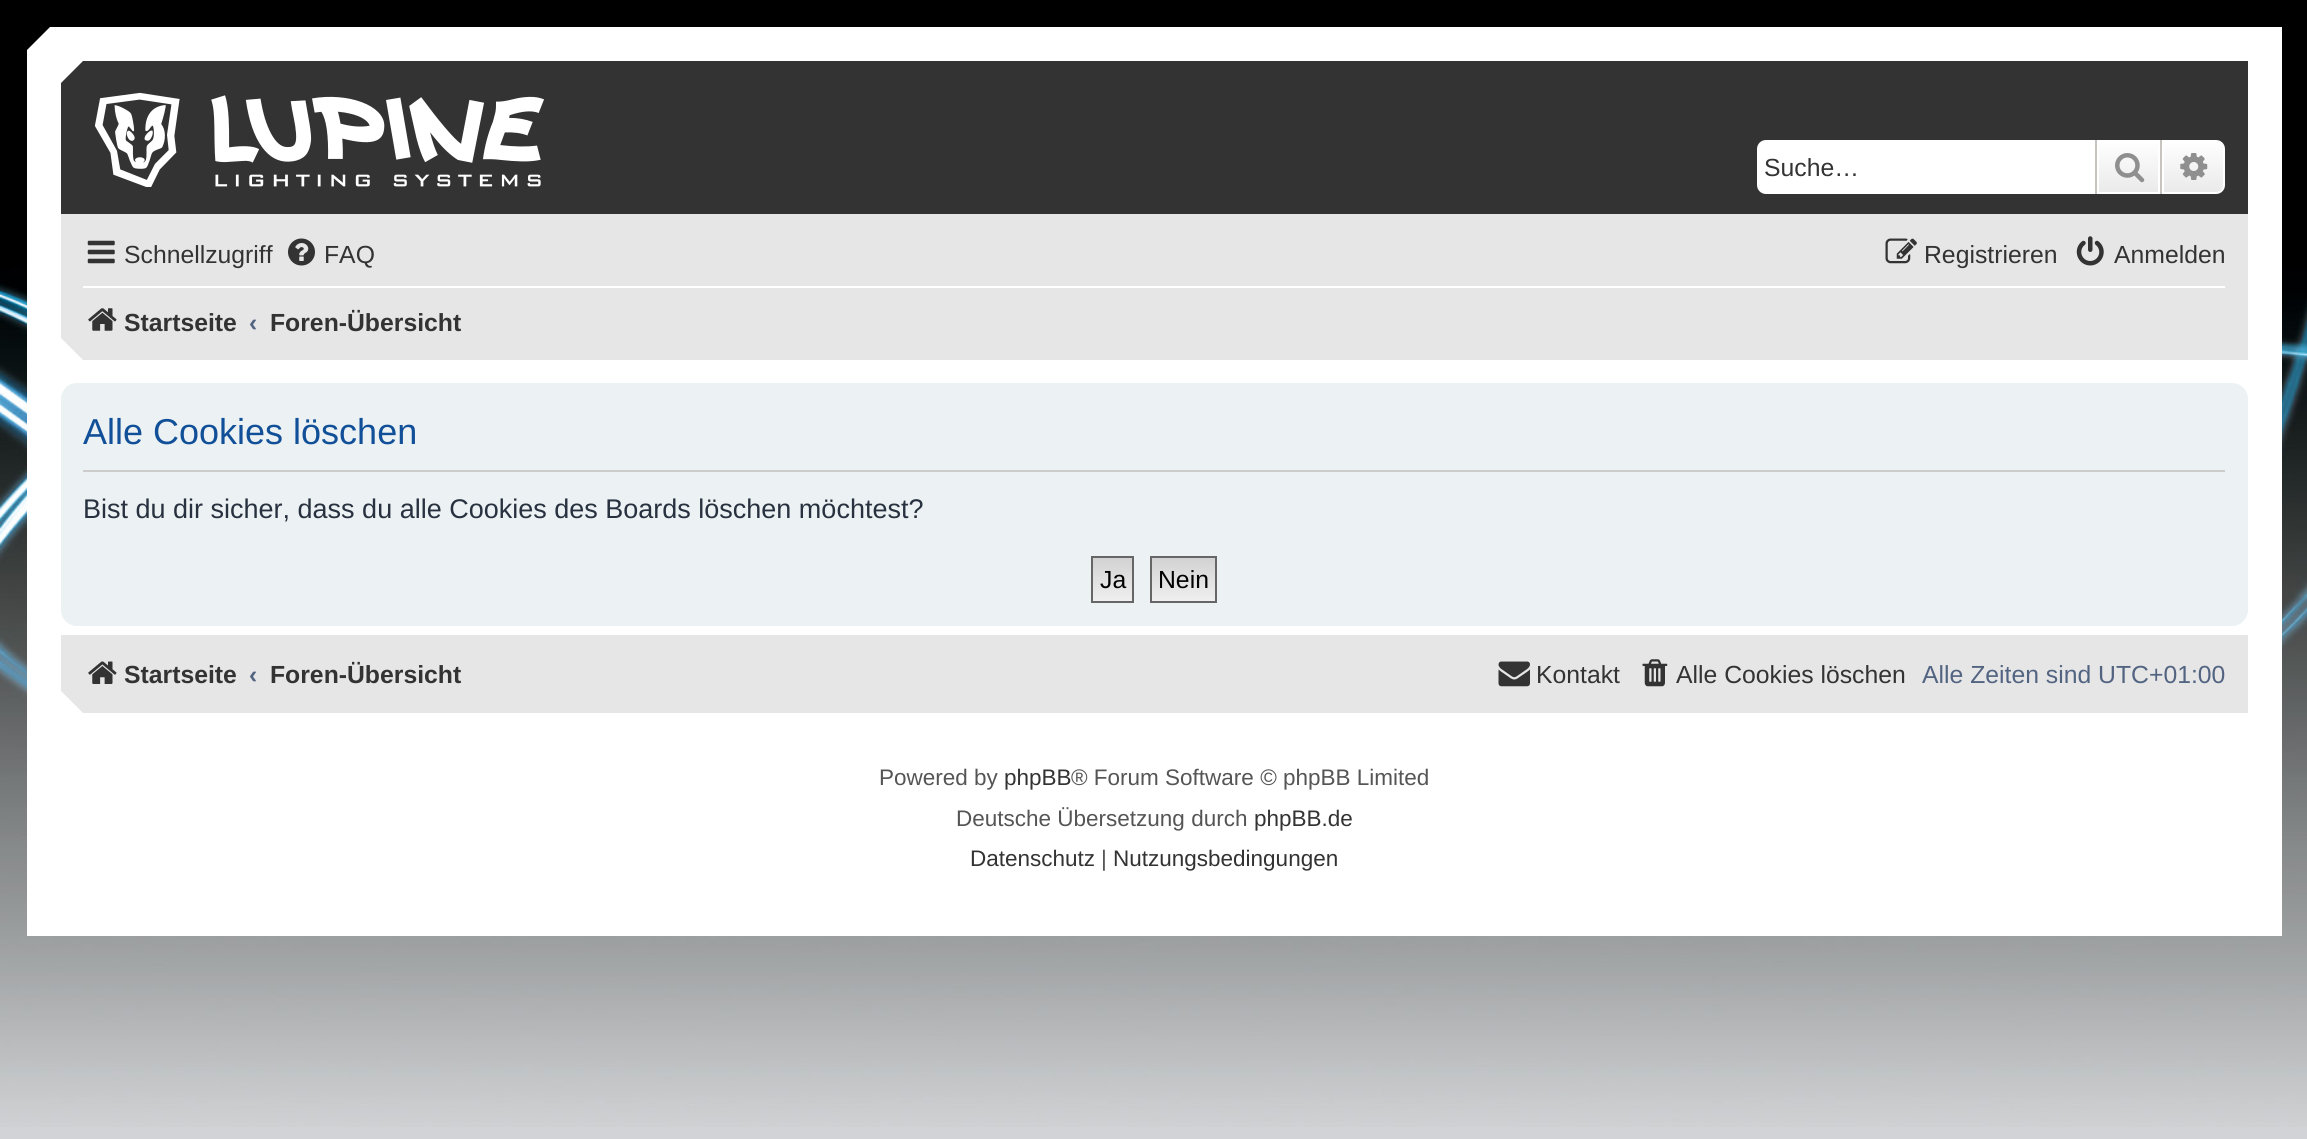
import math
import cairo

surface = cairo.ImageSurface(cairo.FORMAT_RGB24, 2307, 1139)
ctx = cairo.Context(surface)
options = cairo.FontOptions()
options.set_hint_metrics(cairo.HINT_METRICS_OFF)
options.set_hint_style(cairo.HINT_STYLE_NONE)
ctx.set_font_options(options)
ctx.set_miter_limit(4)


def set_color(code):
    ctx.set_source_rgb(*(v / 255 for v in bytes.fromhex(code[-6:])))


def draw_text(x, y, s, family, size, color, bold=False, italic=False):
    ctx.select_font_face(family, cairo.FONT_SLANT_ITALIC if italic else cairo.FONT_SLANT_NORMAL, cairo.FONT_WEIGHT_BOLD if bold else cairo.FONT_WEIGHT_NORMAL)
    ctx.set_font_size(size)
    set_color(color)
    ctx.move_to(x, y)
    ctx.show_text(s)


def fill_rect(x, y, w, h, color):
    set_color(color)
    ctx.rectangle(x, y, w, h)
    ctx.fill()


def rounded_rect(x, y, w, h, r):
    ctx.new_sub_path()
    for i, (u, v) in enumerate([(x + w - r, y + h - r), (x + r, y + h - r), (x + r, y + r), (x + w - r, y + r)]):
        ctx.arc(u, v, r, i * math.pi / 2, (i + 1) * math.pi / 2)
    ctx.close_path()


def draw_image(path, x, y, w, h):
    ctx.save()
    ctx.set_source_surface(cairo.ImageSurface.create_from_png(path), x, y)
    ctx.rectangle(x, y, w, h)
    ctx.fill()
    ctx.restore()


set_color("#d2d3d7")
ctx.paint()
draw_image("assets/img1.png", 0, 0, 2307, 1127)
ctx.save()
ctx.rectangle(27, 27, 2255, 909)
ctx.clip()
set_color("#ffffff")
ctx.new_path()
ctx.move_to(50, 27)
ctx.line_to(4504, 27)
ctx.line_to(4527, 50)
ctx.line_to(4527, 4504)
ctx.line_to(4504, 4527)
ctx.line_to(50, 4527)
ctx.line_to(27, 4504)
ctx.line_to(27, 50)
ctx.close_path()
ctx.fill()
ctx.restore()
ctx.save()
ctx.rectangle(61, 61, 2187, 153)
ctx.clip()
set_color("#333333")
ctx.new_path()
ctx.move_to(83, 61)
ctx.line_to(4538, 61)
ctx.line_to(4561, 83)
ctx.line_to(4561, 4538)
ctx.line_to(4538, 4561)
ctx.line_to(83, 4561)
ctx.line_to(61, 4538)
ctx.line_to(61, 83)
ctx.close_path()
ctx.fill()
ctx.restore()
draw_image("assets/img2.png", 95, 92, 449, 95)
set_color("#ffffff")
ctx.new_path()
ctx.move_to(1766, 140)
ctx.line_to(2095, 140)
ctx.line_to(2095, 194)
ctx.line_to(1766, 194)
ctx.curve_to(1761, 194, 1757, 190, 1757, 185)
ctx.line_to(1757, 149)
ctx.curve_to(1757, 144, 1761, 140, 1766, 140)
ctx.close_path()
ctx.fill()
draw_text(1764, 176, "Suche…", "Liberation Sans", 24.75, "#333333")
gradient = cairo.LinearGradient(2129, 140, 2129, 194)
gradient.add_color_stop_rgba(0, 1, 1, 1, 1)
gradient.add_color_stop_rgba(1, 0.914, 0.914, 0.914, 1)
ctx.set_source(gradient)
ctx.rectangle(2099, 142, 59, 50)
ctx.fill()
ctx.rectangle(2098, 141, 61, 52)
set_color("#ffffff")
ctx.stroke()
fill_rect(2160, 140, 2, 54, "#c7c3bf")
fill_rect(2095, 140, 2, 54, "#c7c3bf")
draw_image("assets/img3.png", 2115, 153, 30, 30)
gradient = cairo.LinearGradient(2194, 140, 2194, 194)
gradient.add_color_stop_rgba(0, 1, 1, 1, 1)
gradient.add_color_stop_rgba(1, 0.914, 0.914, 0.914, 1)
ctx.set_source(gradient)
ctx.new_path()
ctx.move_to(2163, 141)
ctx.line_to(2216, 141)
ctx.curve_to(2220.5, 141, 2224, 144.5, 2224, 149)
ctx.line_to(2224, 185)
ctx.curve_to(2224, 189.5, 2220.5, 193, 2216, 193)
ctx.line_to(2163, 193)
ctx.close_path()
ctx.fill_preserve()
set_color("#ffffff")
ctx.stroke()
draw_image("assets/img4.png", 2180, 153, 28, 27)
ctx.save()
ctx.rectangle(61, 214, 2187, 146)
ctx.clip()
set_color("#e6e6e6")
ctx.new_path()
ctx.move_to(83, -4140)
ctx.line_to(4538, -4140)
ctx.line_to(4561, -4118)
ctx.line_to(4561, 338)
ctx.line_to(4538, 360)
ctx.line_to(83, 360)
ctx.line_to(61, 338)
ctx.line_to(61, -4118)
ctx.close_path()
ctx.fill()
ctx.restore()
draw_image("assets/img5.png", 87, 240, 28, 24)
draw_text(124, 263, "Schnellzugriff", "Liberation Sans", 24.75, "#333333")
draw_image("assets/img6.png", 288, 238, 27, 28)
draw_text(324, 263, "FAQ", "Liberation Sans", 24.75, "#333333")
draw_image("assets/img7.png", 1885, 238, 32, 26)
draw_text(1924, 263, "Registrieren", "Liberation Sans", 24.75, "#333333")
draw_image("assets/img8.png", 2076, 236, 28, 30)
draw_text(2114, 263, "Anmelden", "Liberation Sans", 24.75, "#333333")
fill_rect(83, 286, 2142, 2, "#ffffff")
draw_image("assets/img9.png", 88, 308, 29, 23)
draw_text(124, 331, "Startseite", "Liberation Sans", 24.75, "#333333", bold=True)
draw_text(249, 331, "‹", "Liberation Sans", 24.75, "#536482", bold=True)
draw_text(270, 331, "Foren-Übersicht", "Liberation Sans", 24.75, "#333333", bold=True)
set_color("#ecf1f3")
rounded_rect(61, 383, 2187, 243, 16)
ctx.fill()
fill_rect(83, 470, 2142, 2, "#cccccc")
draw_text(83, 444, "Alle Cookies löschen", "Liberation Sans", 36, "#115098")
draw_text(83, 518, "Bist du dir sicher, dass du alle Cookies des Boards löschen möchtest?", "Liberation Sans", 27, "#28313f")
gradient = cairo.LinearGradient(1113, 558, 1113, 601)
gradient.add_color_stop_rgba(0, 0.824, 0.824, 0.824, 1)
gradient.add_color_stop_rgba(1, 0.937, 0.937, 0.937, 1)
ctx.set_source(gradient)
ctx.rectangle(1093, 558, 39, 43)
ctx.fill()
ctx.rectangle(1092, 557, 41, 45)
set_color("#666666")
ctx.stroke()
draw_text(1100, 588, "Ja", "Liberation Sans", 24.75, "#000000")
gradient = cairo.LinearGradient(1184, 558, 1184, 601)
gradient.add_color_stop_rgba(0, 0.824, 0.824, 0.824, 1)
gradient.add_color_stop_rgba(1, 0.937, 0.937, 0.937, 1)
ctx.set_source(gradient)
ctx.rectangle(1152, 558, 63, 43)
ctx.fill()
ctx.rectangle(1151, 557, 65, 45)
set_color("#666666")
ctx.stroke()
draw_text(1158, 588, "Nein", "Liberation Sans", 24.75, "#000000")
ctx.save()
ctx.rectangle(61, 635, 2187, 78)
ctx.clip()
set_color("#e6e6e6")
ctx.new_path()
ctx.move_to(83, -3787)
ctx.line_to(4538, -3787)
ctx.line_to(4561, -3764)
ctx.line_to(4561, 691)
ctx.line_to(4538, 713)
ctx.line_to(83, 713)
ctx.line_to(61, 691)
ctx.line_to(61, -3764)
ctx.close_path()
ctx.fill()
ctx.restore()
draw_image("assets/img10.png", 88, 661, 29, 23)
draw_text(124, 683, "Startseite", "Liberation Sans", 24.75, "#333333", bold=True)
draw_text(249, 683, "‹", "Liberation Sans", 24.75, "#536482", bold=True)
draw_text(270, 683, "Foren-Übersicht", "Liberation Sans", 24.75, "#333333", bold=True)
draw_image("assets/img11.png", 1498, 661, 32, 26)
draw_text(1536, 683, "Kontakt", "Liberation Sans", 24.75, "#333333")
draw_image("assets/img12.png", 1642, 659, 26, 28)
draw_text(1676, 683, "Alle Cookies löschen", "Liberation Sans", 24.75, "#333333")
draw_text(1922, 683, "Alle Zeiten sind UTC+01:00", "Liberation Sans", 24.75, "#536482")
draw_text(879, 785, "Powered by", "Liberation Sans", 22.5, "#555555")
draw_text(1004, 785, "phpBB", "Liberation Sans", 22.5, "#333333")
draw_text(1071, 785, "® Forum Software © phpBB Limited", "Liberation Sans", 22.5, "#555555")
draw_text(956, 826, "Deutsche Übersetzung durch", "Liberation Sans", 22.5, "#555555")
draw_text(1254, 826, "phpBB.de", "Liberation Sans", 22.5, "#333333")
draw_text(970, 866, "Datenschutz", "Liberation Sans", 22.5, "#333333")
draw_text(1101, 866, "|", "Liberation Sans", 22.5, "#555555")
draw_text(1113, 866, "Nutzungsbedingungen", "Liberation Sans", 22.5, "#333333")
surface.write_to_png("output.png")
